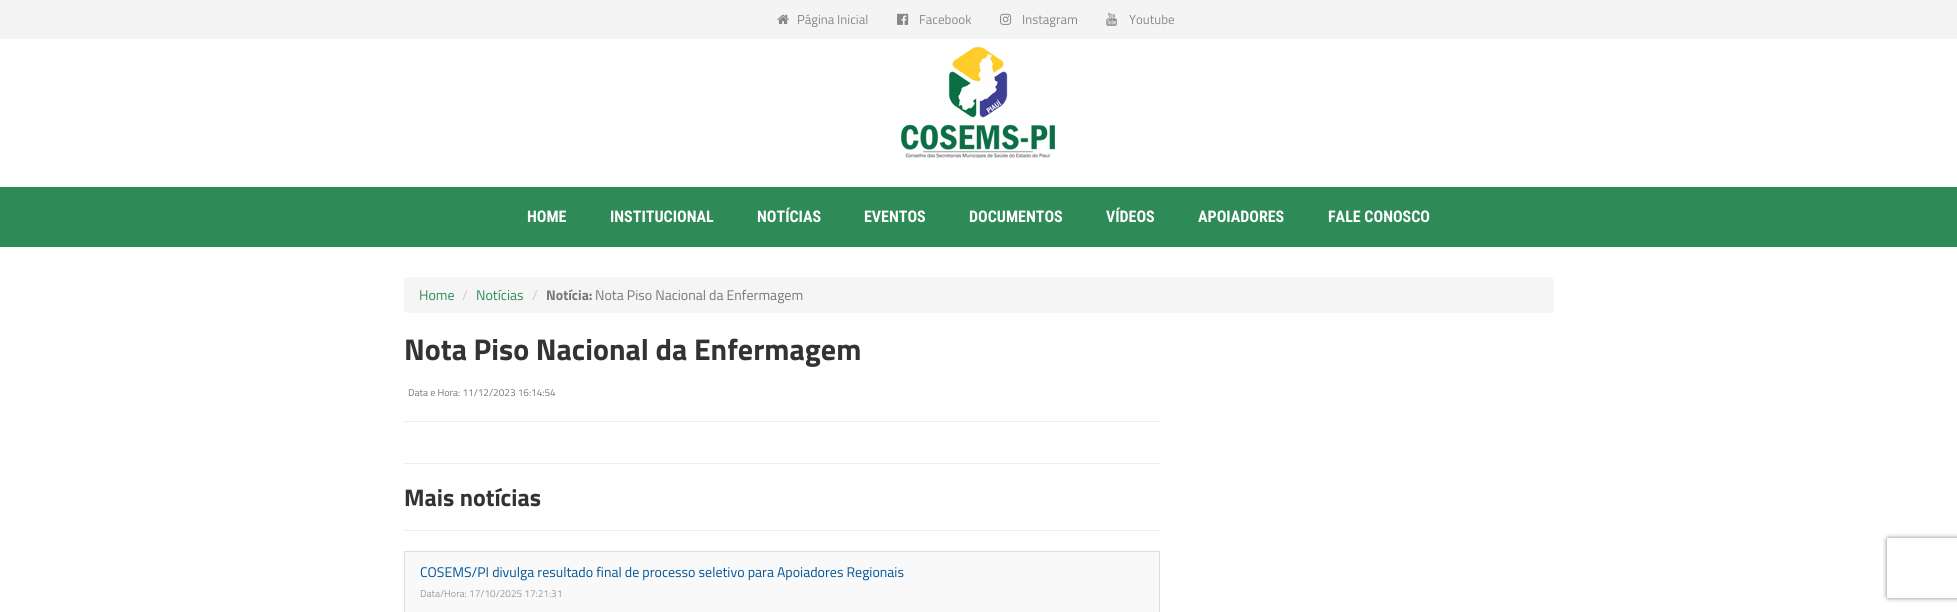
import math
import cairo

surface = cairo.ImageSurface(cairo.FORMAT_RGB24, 1957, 612)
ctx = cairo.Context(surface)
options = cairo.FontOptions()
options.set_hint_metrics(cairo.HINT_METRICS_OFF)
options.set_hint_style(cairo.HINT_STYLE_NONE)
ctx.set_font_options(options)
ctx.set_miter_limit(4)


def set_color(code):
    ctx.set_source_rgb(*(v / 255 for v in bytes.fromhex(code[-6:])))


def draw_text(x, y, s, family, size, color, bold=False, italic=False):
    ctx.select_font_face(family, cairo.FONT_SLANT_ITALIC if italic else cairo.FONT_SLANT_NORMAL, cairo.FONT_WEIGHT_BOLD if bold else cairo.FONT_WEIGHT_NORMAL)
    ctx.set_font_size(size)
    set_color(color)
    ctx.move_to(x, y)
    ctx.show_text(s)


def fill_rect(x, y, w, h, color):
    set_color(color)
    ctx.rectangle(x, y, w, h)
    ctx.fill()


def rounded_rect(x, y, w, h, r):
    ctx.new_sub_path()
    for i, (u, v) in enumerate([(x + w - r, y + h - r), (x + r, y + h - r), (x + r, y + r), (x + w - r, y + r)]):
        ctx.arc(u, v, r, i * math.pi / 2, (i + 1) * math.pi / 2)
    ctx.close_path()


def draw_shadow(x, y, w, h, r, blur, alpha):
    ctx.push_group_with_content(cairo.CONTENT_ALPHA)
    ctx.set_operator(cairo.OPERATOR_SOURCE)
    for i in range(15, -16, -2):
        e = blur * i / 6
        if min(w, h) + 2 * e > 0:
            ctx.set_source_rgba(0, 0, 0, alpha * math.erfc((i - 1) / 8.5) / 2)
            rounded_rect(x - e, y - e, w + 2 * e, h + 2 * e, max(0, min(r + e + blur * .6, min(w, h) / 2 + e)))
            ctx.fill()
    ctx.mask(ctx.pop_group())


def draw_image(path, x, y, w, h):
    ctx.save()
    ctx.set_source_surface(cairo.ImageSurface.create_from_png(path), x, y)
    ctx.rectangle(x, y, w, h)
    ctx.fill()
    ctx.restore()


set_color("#ffffff")
ctx.paint()
fill_rect(0, 0, 1957, 39, "#f4f4f4")
draw_image("assets/img1.png", 777, 14, 12, 10)
draw_text(797, 24, "Página Inicial", "Titillium Web", 13, "#888888")
draw_image("assets/img2.png", 897, 13, 12, 12)
draw_text(919, 24, "Facebook", "Titillium Web", 13, "#888888")
draw_image("assets/img3.png", 1000, 13, 12, 12)
draw_text(1022, 24, "Instagram", "Titillium Web", 13, "#888888")
draw_image("assets/img4.png", 1106, 12, 11, 14)
draw_text(1129, 24, "Youtube", "Titillium Web", 13, "#888888")
draw_image("assets/img5.png", 901, 47, 154, 111)
fill_rect(0, 187, 1957, 60, "#2e8b57")
draw_text(527, 222, "HOME", "Roboto Condensed", 16, "#ffffff", bold=True)
draw_text(610, 222, "INSTITUCIONAL", "Roboto Condensed", 16, "#ffffff", bold=True)
draw_text(757, 222, "NOTÍCIAS", "Roboto Condensed", 16, "#ffffff", bold=True)
draw_text(864, 222, "EVENTOS", "Roboto Condensed", 16, "#ffffff", bold=True)
draw_text(969, 222, "DOCUMENTOS", "Roboto Condensed", 16, "#ffffff", bold=True)
draw_text(1106, 222, "VÍDEOS", "Roboto Condensed", 16, "#ffffff", bold=True)
draw_text(1198, 222, "APOIADORES", "Roboto Condensed", 16, "#ffffff", bold=True)
draw_text(1328, 222, "FALE CONOSCO", "Roboto Condensed", 16, "#ffffff", bold=True)
set_color("#f5f5f5")
rounded_rect(404, 277, 1150, 36, 4)
ctx.fill()
draw_text(419, 300, "Home", "Titillium Web", 14, "#2e8b57")
draw_text(462, 300, "/", "Titillium Web", 14, "#cccccc")
draw_text(476, 300, "Notícias", "Titillium Web", 14, "#2e8b57")
draw_text(532, 300, "/", "Titillium Web", 14, "#cccccc")
draw_text(546, 300, "Notícia:", "Titillium Web", 14, "#777777", bold=True)
draw_text(595, 300, "Nota Piso Nacional da Enfermagem", "Titillium Web", 14, "#777777")
draw_text(404, 360, "Nota Piso Nacional da Enfermagem", "Titillium Web", 30, "#333333", bold=True)
draw_text(408, 396, "Data e Hora: 11/12/2023 16:14:54", "Titillium Web", 10, "#777777")
fill_rect(404, 421, 756, 1, "#eeeeee")
fill_rect(404, 463, 756, 1, "#eeeeee")
draw_text(404, 506, "Mais notícias", "Titillium Web", 24, "#333333", bold=True)
fill_rect(404, 530, 756, 1, "#eeeeee")
fill_rect(404, 551, 756, 1, "#dddddd")
fill_rect(1159, 551, 1, 61, "#dddddd")
fill_rect(404, 551, 1, 61, "#dddddd")
fill_rect(405, 552, 754, 60, "#f9f9f9")
draw_text(420, 577, "COSEMS/PI divulga resultado final de processo seletivo para Apoiadores Regionais", "Titillium Web", 14, "#005599")
draw_text(420, 597, "Data/Hora: 17/10/2025 17:21:31", "Titillium Web", 10, "#999999")
ctx.save()
ctx.set_fill_rule(cairo.FILL_RULE_EVEN_ODD)
ctx.new_path()
ctx.move_to(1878, 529)
ctx.line_to(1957, 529)
ctx.line_to(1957, 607)
ctx.line_to(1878, 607)
ctx.close_path()
ctx.move_to(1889, 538)
ctx.line_to(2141, 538)
ctx.curve_to(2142, 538, 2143, 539, 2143, 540)
ctx.line_to(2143, 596)
ctx.curve_to(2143, 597, 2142, 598, 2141, 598)
ctx.line_to(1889, 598)
ctx.curve_to(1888, 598, 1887, 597, 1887, 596)
ctx.line_to(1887, 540)
ctx.curve_to(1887, 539, 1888, 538, 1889, 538)
ctx.close_path()
ctx.clip()
set_color("#808080")
draw_shadow(1887, 538, 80, 60, 2, 2.5, 1)
ctx.restore()
surface.write_to_png("output.png")
